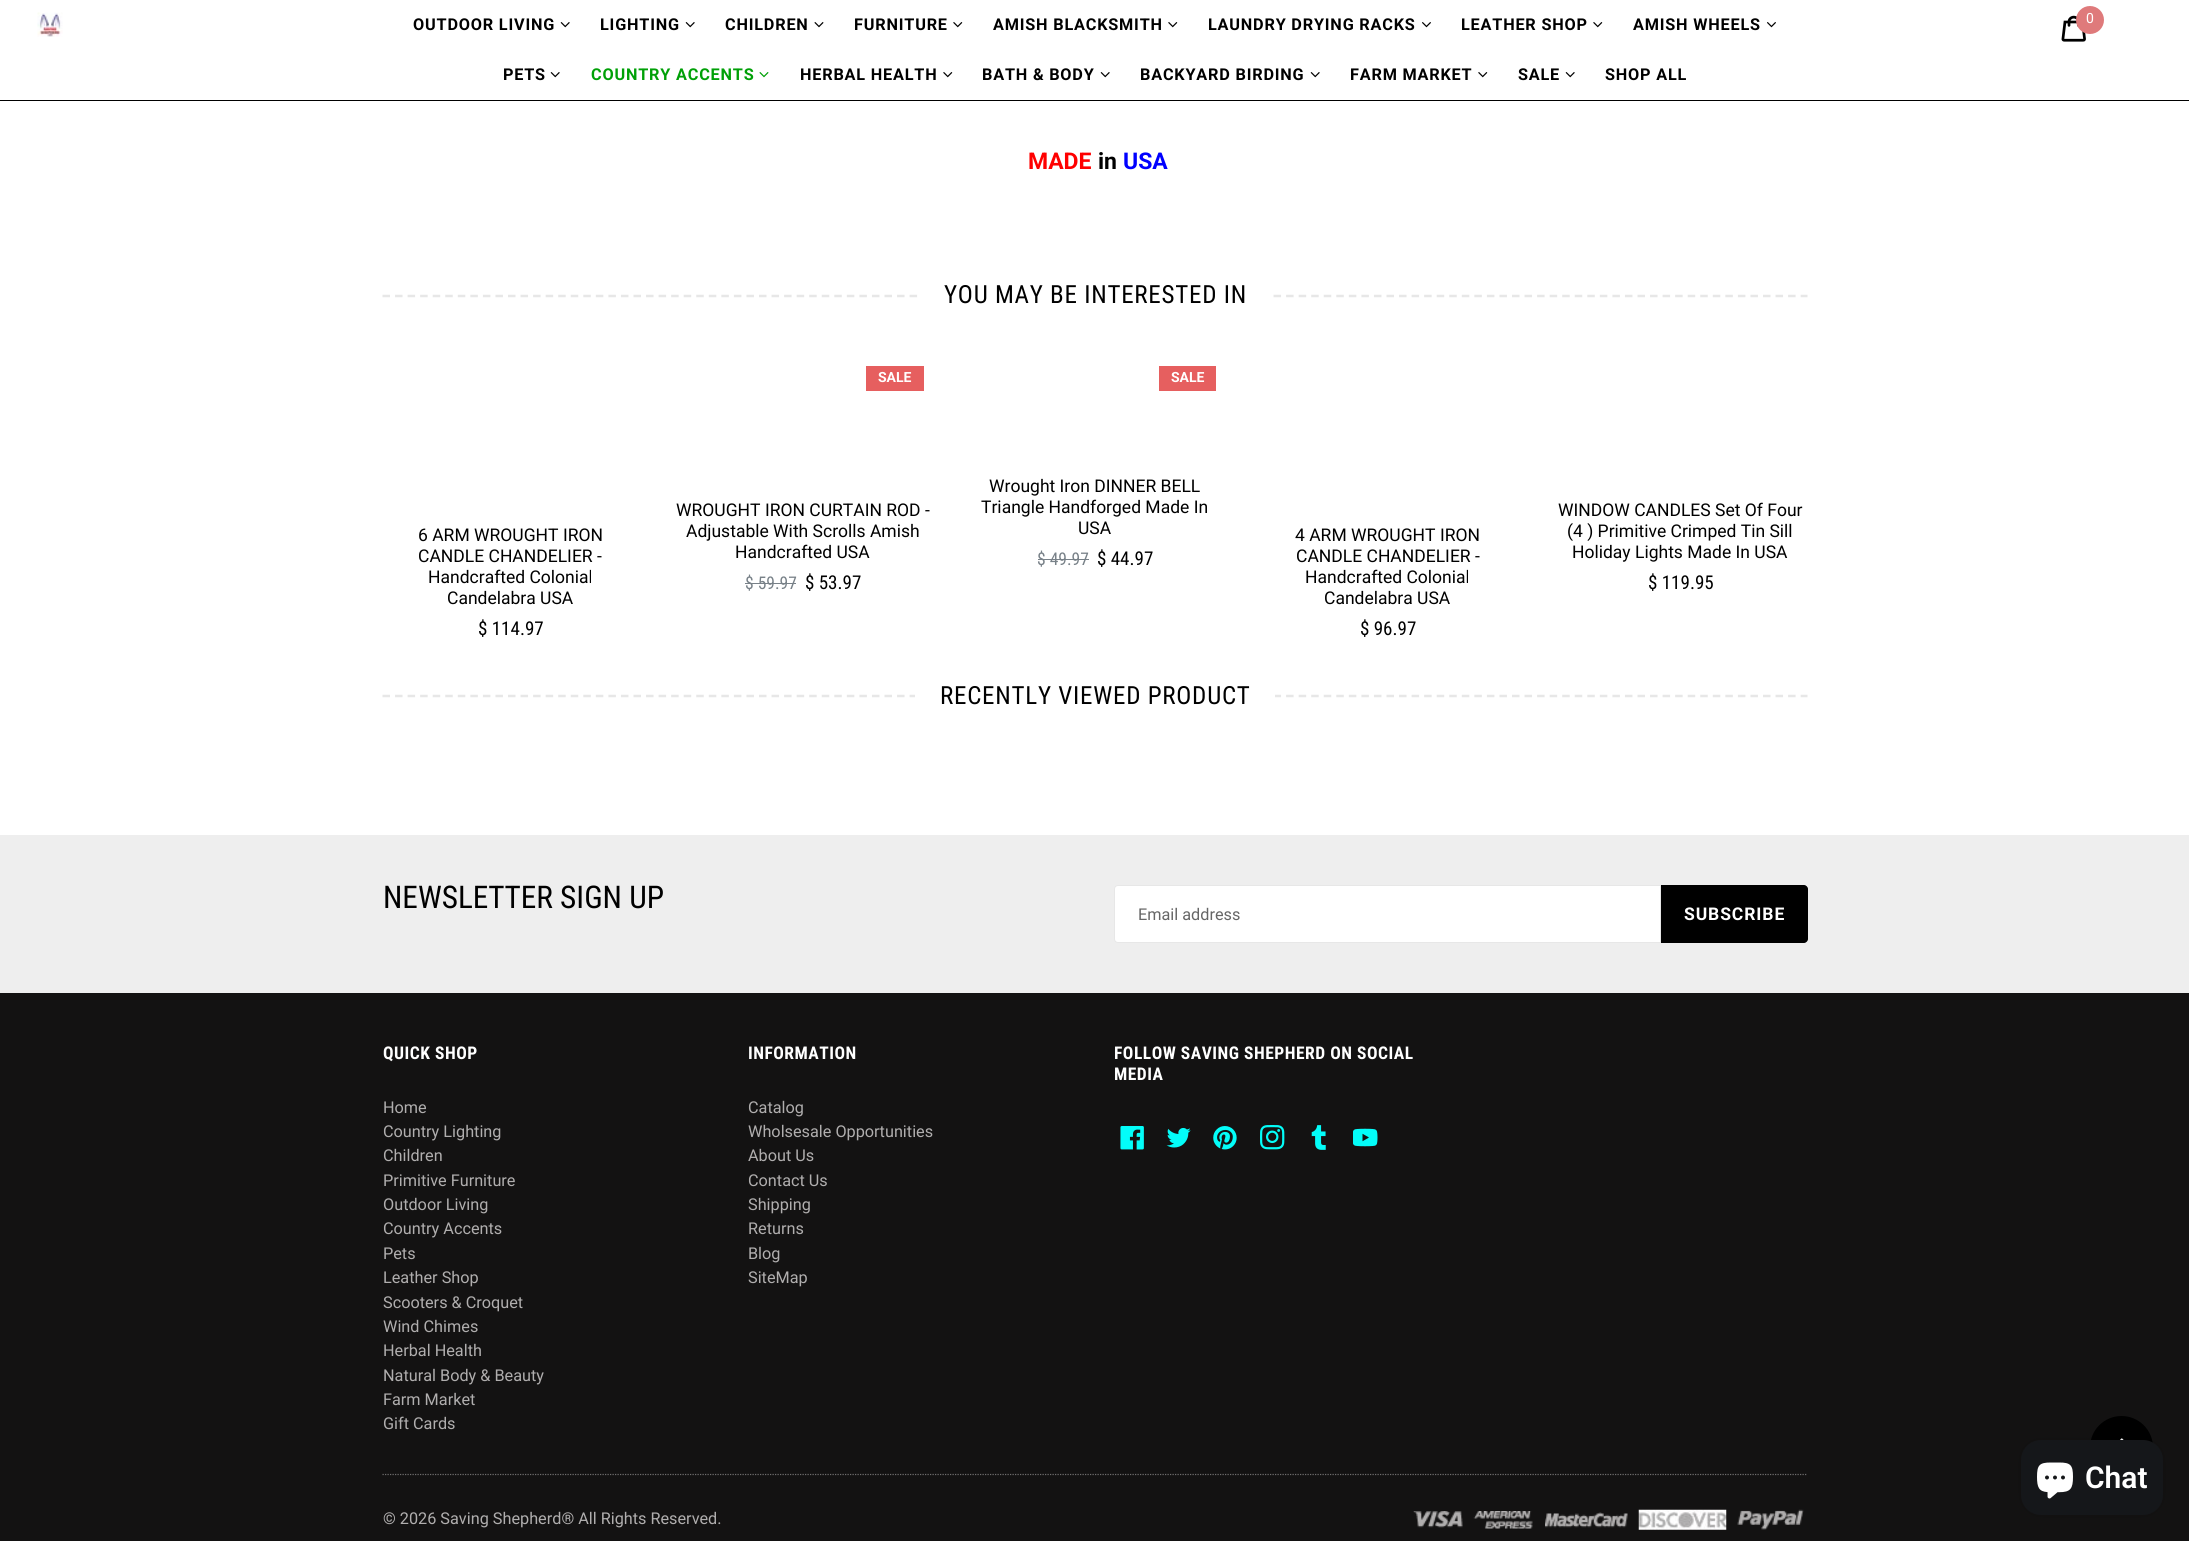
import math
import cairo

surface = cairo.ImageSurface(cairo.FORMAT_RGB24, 2189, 1541)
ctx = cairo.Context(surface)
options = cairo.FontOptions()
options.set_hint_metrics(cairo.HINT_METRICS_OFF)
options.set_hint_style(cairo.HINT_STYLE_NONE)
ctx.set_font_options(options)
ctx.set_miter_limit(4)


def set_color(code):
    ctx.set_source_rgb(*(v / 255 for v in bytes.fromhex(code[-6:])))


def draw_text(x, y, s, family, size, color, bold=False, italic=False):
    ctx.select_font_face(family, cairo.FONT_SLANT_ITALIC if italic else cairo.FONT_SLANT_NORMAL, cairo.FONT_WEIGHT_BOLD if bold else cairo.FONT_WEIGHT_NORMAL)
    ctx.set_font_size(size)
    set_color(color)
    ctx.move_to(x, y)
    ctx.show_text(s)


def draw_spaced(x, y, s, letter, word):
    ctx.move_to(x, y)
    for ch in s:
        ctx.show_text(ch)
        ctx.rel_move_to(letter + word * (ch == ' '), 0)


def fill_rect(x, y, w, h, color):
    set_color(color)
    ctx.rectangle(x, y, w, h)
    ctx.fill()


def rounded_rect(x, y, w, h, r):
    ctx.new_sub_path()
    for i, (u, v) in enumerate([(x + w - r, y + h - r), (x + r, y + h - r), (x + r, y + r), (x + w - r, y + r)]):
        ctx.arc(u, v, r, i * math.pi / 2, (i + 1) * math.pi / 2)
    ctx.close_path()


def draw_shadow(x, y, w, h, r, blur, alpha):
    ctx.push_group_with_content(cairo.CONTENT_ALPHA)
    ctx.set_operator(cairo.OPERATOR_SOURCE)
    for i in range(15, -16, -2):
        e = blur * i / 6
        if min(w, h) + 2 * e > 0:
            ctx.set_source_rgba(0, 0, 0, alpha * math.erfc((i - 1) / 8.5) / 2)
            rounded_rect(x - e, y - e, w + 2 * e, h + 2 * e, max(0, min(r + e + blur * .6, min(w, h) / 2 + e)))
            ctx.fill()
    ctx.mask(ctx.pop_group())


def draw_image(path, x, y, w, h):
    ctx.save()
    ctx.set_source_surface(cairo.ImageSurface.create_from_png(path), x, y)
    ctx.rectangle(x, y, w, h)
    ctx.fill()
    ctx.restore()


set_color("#ffffff")
ctx.paint()
fill_rect(0, 100, 2189, 1, "#000000")
draw_image("assets/img1.png", 37, 12, 26, 25)
ctx.select_font_face("Roboto", cairo.FONT_SLANT_NORMAL, cairo.FONT_WEIGHT_BOLD)
ctx.set_font_size(16.25)
draw_spaced(413, 30, "OUTDOOR LIVING", 0.8, 0)
draw_image("assets/img2.png", 560, 22, 10, 6)
draw_spaced(600, 30, "LIGHTING", 0.8, 0)
draw_image("assets/img2.png", 685, 22, 10, 6)
draw_spaced(725, 30, "CHILDREN", 0.8, 0)
draw_image("assets/img3.png", 814, 22, 10, 6)
draw_spaced(854, 30, "FURNITURE", 0.8, 0)
draw_image("assets/img4.png", 953, 22, 10, 6)
draw_spaced(993, 30, "AMISH BLACKSMITH", 0.8, 0)
draw_image("assets/img4.png", 1168, 22, 10, 6)
draw_spaced(1208, 30, "LAUNDRY DRYING RACKS", 0.8, 0)
draw_image("assets/img5.png", 1422, 22, 9, 6)
draw_spaced(1461, 30, "LEATHER SHOP", 0.8, 0)
draw_image("assets/img4.png", 1593, 22, 10, 6)
draw_spaced(1633, 30, "AMISH WHEELS", 0.8, 0)
draw_image("assets/img5.png", 1767, 22, 9, 6)
draw_spaced(503, 80, "PETS", 0.8, 0)
draw_image("assets/img2.png", 550, 72, 10, 6)
set_color("#00a007")
draw_spaced(591, 80, "COUNTRY ACCENTS", 0.8, 0)
draw_image("assets/img6.png", 759, 72, 10, 6)
set_color("#000000")
draw_spaced(800, 80, "HERBAL HEALTH", 0.8, 0)
draw_image("assets/img4.png", 943, 72, 10, 6)
draw_spaced(982, 80, "BATH & BODY", 0.8, 0)
draw_image("assets/img2.png", 1100, 72, 10, 6)
draw_spaced(1140, 80, "BACKYARD BIRDING", 0.8, 0)
draw_image("assets/img2.png", 1310, 72, 10, 6)
draw_spaced(1350, 80, "FARM MARKET", 0.8, 0)
draw_image("assets/img4.png", 1478, 72, 10, 6)
draw_spaced(1518, 80, "SALE", 0.8, 0)
draw_image("assets/img2.png", 1565, 72, 10, 6)
draw_spaced(1605, 80, "SHOP ALL", 0.8, 0)
draw_image("assets/img7.png", 2061, 15, 25, 27)
set_color("#df7a7b")
ctx.arc(2090, 20, 14, 0, 2 * math.pi)
ctx.fill()
draw_text(2086, 23, "0", "Roboto", 14, "#ffffff")
draw_text(1028, 169, "MADE", "Roboto", 23, "#ff0000", bold=True)
draw_text(1098, 169, "in", "Roboto", 23, "#000000", bold=True)
draw_text(1123, 169, "USA", "Roboto", 23, "#0000ff", bold=True)
ctx.new_path()
ctx.move_to(382.5, 296)
ctx.line_to(1807.5, 296)
set_color("#e7e7e7")
ctx.set_line_width(2.5)
ctx.set_dash([7.5, 5.05])
ctx.stroke()
fill_rect(922, 294, 347, 4, "#ffffff")
ctx.select_font_face("Roboto Condensed")
ctx.set_font_size(25)
set_color("#000000")
draw_spaced(944, 303, "YOU MAY BE INTERESTED IN", 0.75, 0)
draw_text(418, 541, "6 ARM WROUGHT IRON", "Roboto", 17.5, "#000000")
draw_text(418, 562, "CANDLE CHANDELIER -", "Roboto", 17.5, "#000000")
draw_text(428, 583, "Handcrafted Colonial", "Roboto", 17.5, "#000000")
draw_text(447, 604, "Candelabra USA", "Roboto", 17.5, "#000000")
draw_text(478, 635, "$ 114.97", "Roboto Condensed", 19, "#000000")
fill_rect(866, 366, 58, 25, "#e65f5f")
draw_text(878, 382, "SALE", "Roboto", 14, "#ffffff", bold=True)
draw_text(676, 516, "WROUGHT IRON CURTAIN ROD -", "Roboto", 17.5, "#000000")
draw_text(686, 537, "Adjustable With Scrolls Amish", "Roboto", 17.5, "#000000")
draw_text(735, 558, "Handcrafted USA", "Roboto", 17.5, "#000000")
draw_text(745, 589, "$ 59.97", "Roboto Condensed", 17.5, "#788188")
fill_rect(745, 583, 51, 1, "#788188")
draw_text(805, 589, "$ 53.97", "Roboto Condensed", 19, "#000000")
fill_rect(1159, 366, 57, 25, "#e65f5f")
draw_text(1171, 382, "SALE", "Roboto", 14, "#ffffff", bold=True)
draw_text(989, 492, "Wrought Iron DINNER BELL", "Roboto", 17.5, "#000000")
draw_text(981, 513, "Triangle Handforged Made In", "Roboto", 17.5, "#000000")
draw_text(1078, 534, "USA", "Roboto", 17.5, "#000000")
draw_text(1037, 565, "$ 49.97", "Roboto Condensed", 17.5, "#788188")
fill_rect(1038, 559, 51, 1, "#788188")
draw_text(1097, 565, "$ 44.97", "Roboto Condensed", 19, "#000000")
draw_text(1295, 541, "4 ARM WROUGHT IRON", "Roboto", 17.5, "#000000")
draw_text(1296, 562, "CANDLE CHANDELIER -", "Roboto", 17.5, "#000000")
draw_text(1305, 583, "Handcrafted Colonial", "Roboto", 17.5, "#000000")
draw_text(1324, 604, "Candelabra USA", "Roboto", 17.5, "#000000")
draw_text(1360, 635, "$ 96.97", "Roboto Condensed", 19, "#000000")
draw_text(1558, 516, "WINDOW CANDLES Set Of Four", "Roboto", 17.5, "#000000")
draw_text(1567, 537, "(4 ) Primitive Crimped Tin Sill", "Roboto", 17.5, "#000000")
draw_text(1572, 558, "Holiday Lights Made In USA", "Roboto", 17.5, "#000000")
draw_text(1648, 589, "$ 119.95", "Roboto Condensed", 19, "#000000")
ctx.new_path()
ctx.move_to(382.5, 696)
ctx.line_to(1807.5, 696)
set_color("#e7e7e7")
ctx.stroke()
fill_rect(915, 694, 360, 4, "#ffffff")
ctx.set_font_size(25)
set_color("#000000")
draw_spaced(940, 704, "RECENTLY VIEWED PRODUCT", 0.75, 0)
fill_rect(0, 993, 2189, 548, "#131212")
fill_rect(0, 835, 2189, 158, "#eeeeee")
draw_text(383, 908, "NEWSLETTER SIGN UP", "Roboto Condensed", 31.25, "#000000")
set_color("#ffffff")
ctx.new_path()
ctx.move_to(1118, 885.5)
ctx.line_to(1660.5, 885.5)
ctx.line_to(1660.5, 942.5)
ctx.line_to(1118, 942.5)
ctx.curve_to(1116, 942.5, 1114.5, 941, 1114.5, 939)
ctx.line_to(1114.5, 889)
ctx.curve_to(1114.5, 887, 1116, 885.5, 1118, 885.5)
ctx.close_path()
ctx.fill_preserve()
set_color("#e7e7e7")
ctx.set_line_width(1)
ctx.set_dash([])
ctx.stroke()
draw_text(1138, 920, "Email address", "Roboto", 16.25, "#666666")
set_color("#000000")
ctx.new_path()
ctx.move_to(1661, 885)
ctx.line_to(1804, 885)
ctx.curve_to(1806, 885, 1808, 887, 1808, 889)
ctx.line_to(1808, 939)
ctx.curve_to(1808, 941, 1806, 943, 1804, 943)
ctx.line_to(1661, 943)
ctx.close_path()
ctx.fill()
ctx.select_font_face("Roboto", cairo.FONT_SLANT_NORMAL, cairo.FONT_WEIGHT_BOLD)
ctx.set_font_size(17.5)
set_color("#ffffff")
draw_spaced(1684, 920, "SUBSCRIBE", 0.9, 0)
ctx.new_path()
ctx.move_to(382.5, 1474.5)
ctx.line_to(1807.5, 1474.5)
set_color("#6f6e6e")
ctx.set_line_width(1.2)
ctx.set_dash([1.25, 1.25])
ctx.stroke()
ctx.select_font_face("Roboto Condensed", cairo.FONT_SLANT_NORMAL, cairo.FONT_WEIGHT_BOLD)
set_color("#ffffff")
draw_spaced(383, 1059, "QUICK SHOP", 0.5, 0)
draw_text(383, 1113, "Home", "Roboto", 16.25, "#b0aeae")
draw_text(383, 1137, "Country Lighting", "Roboto", 16.25, "#b0aeae")
draw_text(383, 1161, "Children", "Roboto", 16.25, "#b0aeae")
draw_text(383, 1186, "Primitive Furniture", "Roboto", 16.25, "#b0aeae")
draw_text(383, 1210, "Outdoor Living", "Roboto", 16.25, "#b0aeae")
draw_text(383, 1234, "Country Accents", "Roboto", 16.25, "#b0aeae")
draw_text(383, 1259, "Pets", "Roboto", 16.25, "#b0aeae")
draw_text(383, 1283, "Leather Shop", "Roboto", 16.25, "#b0aeae")
draw_text(383, 1308, "Scooters & Croquet", "Roboto", 16.25, "#b0aeae")
draw_text(383, 1332, "Wind Chimes", "Roboto", 16.25, "#b0aeae")
draw_text(383, 1356, "Herbal Health", "Roboto", 16.25, "#b0aeae")
draw_text(383, 1381, "Natural Body & Beauty", "Roboto", 16.25, "#b0aeae")
draw_text(383, 1405, "Farm Market", "Roboto", 16.25, "#b0aeae")
draw_text(383, 1429, "Gift Cards", "Roboto", 16.25, "#b0aeae")
ctx.select_font_face("Roboto Condensed", cairo.FONT_SLANT_NORMAL, cairo.FONT_WEIGHT_BOLD)
ctx.set_font_size(17.5)
set_color("#ffffff")
draw_spaced(748, 1059, "INFORMATION", 0.5, 0)
draw_text(748, 1113, "Catalog", "Roboto", 16.25, "#b0aeae")
draw_text(748, 1137, "Wholsesale Opportunities", "Roboto", 16.25, "#b0aeae")
draw_text(748, 1161, "About Us", "Roboto", 16.25, "#b0aeae")
draw_text(748, 1186, "Contact Us", "Roboto", 16.25, "#b0aeae")
draw_text(748, 1210, "Shipping", "Roboto", 16.25, "#b0aeae")
draw_text(748, 1234, "Returns", "Roboto", 16.25, "#b0aeae")
draw_text(748, 1259, "Blog", "Roboto", 16.25, "#b0aeae")
draw_text(748, 1283, "SiteMap", "Roboto", 16.25, "#b0aeae")
ctx.select_font_face("Roboto Condensed", cairo.FONT_SLANT_NORMAL, cairo.FONT_WEIGHT_BOLD)
ctx.set_font_size(17.5)
set_color("#ffffff")
draw_spaced(1114, 1059, "FOLLOW SAVING SHEPHERD ON SOCIAL", 0.5, 0)
draw_spaced(1114, 1080, "MEDIA", 0.5, 0)
draw_image("assets/img8.png", 1120, 1126, 24, 24)
draw_image("assets/img9.png", 1166, 1127, 25, 21)
draw_image("assets/img10.png", 1213, 1126, 24, 24)
draw_image("assets/img11.png", 1260, 1125, 25, 25)
draw_image("assets/img12.png", 1311, 1125, 15, 25)
draw_image("assets/img13.png", 1353, 1128, 25, 19)
draw_text(383, 1524, "© 2026 Saving Shepherd® All Rights Reserved.", "Roboto", 16.25, "#b0aeae")
draw_image("assets/img14.png", 1413, 1511, 50, 17)
draw_image("assets/img15.png", 1473, 1511, 60, 18)
draw_image("assets/img16.png", 1545, 1512, 83, 16)
draw_image("assets/img17.png", 1638, 1509, 89, 21)
draw_image("assets/img18.png", 1737, 1509, 67, 21)
set_color("#000000")
ctx.arc(2121.5, 1447.5, 31.5, 0, 2 * math.pi)
ctx.fill()
draw_image("assets/img19.png", 2120, 1438, 4, 2)
set_color("#000000")
draw_shadow(2021, 1440, 142, 75, 20, 3, 0.15)
set_color("#15171a")
rounded_rect(2021, 1440, 142, 75, 20)
ctx.fill()
draw_image("assets/img20.png", 2037, 1462, 36, 37)
draw_text(2085, 1488, "Chat", "Roboto SemiBold", 30, "#ffffff")
surface.write_to_png("output.png")
